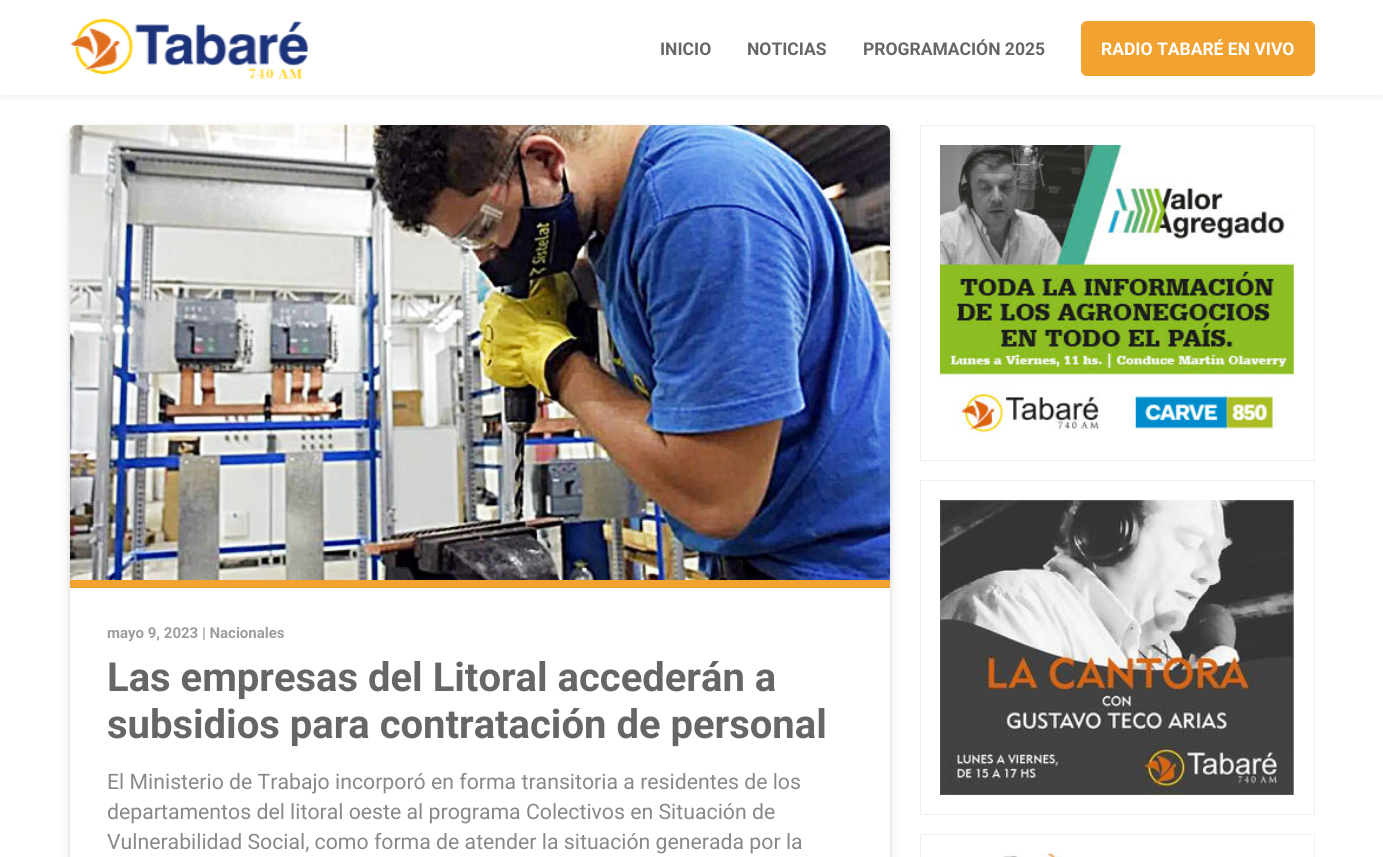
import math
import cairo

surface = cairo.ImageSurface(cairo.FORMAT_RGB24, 1383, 857)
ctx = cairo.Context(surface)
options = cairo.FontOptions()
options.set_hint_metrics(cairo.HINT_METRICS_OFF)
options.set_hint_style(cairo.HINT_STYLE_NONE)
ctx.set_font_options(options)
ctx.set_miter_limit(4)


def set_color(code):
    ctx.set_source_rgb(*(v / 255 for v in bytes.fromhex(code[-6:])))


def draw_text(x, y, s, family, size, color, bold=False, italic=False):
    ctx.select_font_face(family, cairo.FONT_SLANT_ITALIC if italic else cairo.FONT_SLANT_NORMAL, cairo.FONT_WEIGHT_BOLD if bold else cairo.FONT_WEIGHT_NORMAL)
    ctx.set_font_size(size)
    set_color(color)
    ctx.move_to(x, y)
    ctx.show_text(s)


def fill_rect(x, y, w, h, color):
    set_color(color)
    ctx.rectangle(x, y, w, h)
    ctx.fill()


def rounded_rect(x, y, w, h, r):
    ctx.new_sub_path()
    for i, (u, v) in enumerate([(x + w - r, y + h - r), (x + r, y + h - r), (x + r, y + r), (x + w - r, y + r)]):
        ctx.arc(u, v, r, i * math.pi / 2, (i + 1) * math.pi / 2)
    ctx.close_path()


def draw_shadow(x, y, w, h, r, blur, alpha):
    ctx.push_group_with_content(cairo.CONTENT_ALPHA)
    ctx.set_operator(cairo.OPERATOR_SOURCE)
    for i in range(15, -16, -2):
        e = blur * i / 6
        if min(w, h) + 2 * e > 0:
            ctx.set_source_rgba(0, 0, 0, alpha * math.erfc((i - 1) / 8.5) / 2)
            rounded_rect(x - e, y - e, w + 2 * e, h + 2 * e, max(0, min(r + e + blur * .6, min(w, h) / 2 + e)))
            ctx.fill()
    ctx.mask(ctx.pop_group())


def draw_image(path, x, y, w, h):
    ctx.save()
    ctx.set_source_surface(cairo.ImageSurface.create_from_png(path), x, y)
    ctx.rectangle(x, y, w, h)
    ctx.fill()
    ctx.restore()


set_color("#ffffff")
ctx.paint()
ctx.save()
ctx.rectangle(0, 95, 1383, 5)
ctx.clip()
set_color("#000000")
draw_shadow(0, 4, 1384, 95, 0, 4, 0.05)
ctx.restore()
draw_image("assets/img1.png", 70, 18, 238, 61)
draw_text(660, 55, "INICIO", "Roboto", 17.5, "#666666", bold=True)
draw_text(747, 55, "NOTICIAS", "Roboto", 17.5, "#666666", bold=True)
draw_text(863, 55, "PROGRAMACIÓN 2025", "Roboto", 17.5, "#666666", bold=True)
set_color("#f1a230")
rounded_rect(1081, 21, 234, 55, 6)
ctx.fill()
draw_text(1101, 55, "RADIO TABARÉ EN VIVO", "Roboto", 17.5, "#ffffff", bold=True)
ctx.save()
ctx.set_fill_rule(cairo.FILL_RULE_EVEN_ODD)
ctx.new_path()
ctx.move_to(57, 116)
ctx.line_to(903, 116)
ctx.line_to(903, 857)
ctx.line_to(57, 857)
ctx.close_path()
ctx.move_to(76, 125)
ctx.line_to(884, 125)
ctx.curve_to(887.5, 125, 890, 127.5, 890, 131)
ctx.line_to(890, 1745)
ctx.curve_to(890, 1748.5, 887.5, 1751, 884, 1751)
ctx.line_to(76, 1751)
ctx.curve_to(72.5, 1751, 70, 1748.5, 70, 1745)
ctx.line_to(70, 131)
ctx.curve_to(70, 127.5, 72.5, 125, 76, 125)
ctx.close_path()
ctx.clip()
set_color("#000000")
draw_shadow(70, 129, 820, 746, 6, 4, 0.2)
ctx.restore()
draw_image("assets/img2.png", 70, 125, 820, 455)
fill_rect(70, 580, 820, 8, "#f1a230")
draw_text(107, 638, "mayo 9, 2023 | Nacionales", "Roboto", 15, "#9d9d9d", bold=True)
draw_text(107, 691, "Las empresas del Litoral accederán a", "Roboto", 40, "#666666", bold=True)
draw_text(107, 738, "subsidios para contratación de personal", "Roboto", 40, "#666666", bold=True)
draw_text(107, 789, "El Ministerio de Trabajo incorporó en forma transitoria a residentes de los", "Roboto", 21.25, "#888888")
draw_text(107, 819, "departamentos del litoral oeste al programa Colectivos en Situación de", "Roboto", 21.25, "#888888")
draw_text(107, 849, "Vulnerabilidad Social, como forma de atender la situación generada por la", "Roboto", 21.25, "#888888")
ctx.rectangle(920.5, 125.5, 394, 335)
set_color("#eeeeee")
ctx.set_line_width(1)
ctx.stroke()
draw_image("assets/img3.png", 940, 145, 354, 294)
ctx.rectangle(920.5, 480.5, 394, 334)
ctx.stroke()
draw_image("assets/img4.png", 940, 500, 354, 295)
ctx.rectangle(920.5, 834.5, 394, 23)
ctx.stroke()
draw_image("assets/img5.png", 1003, 853, 60, 4)
surface.write_to_png("output.png")
